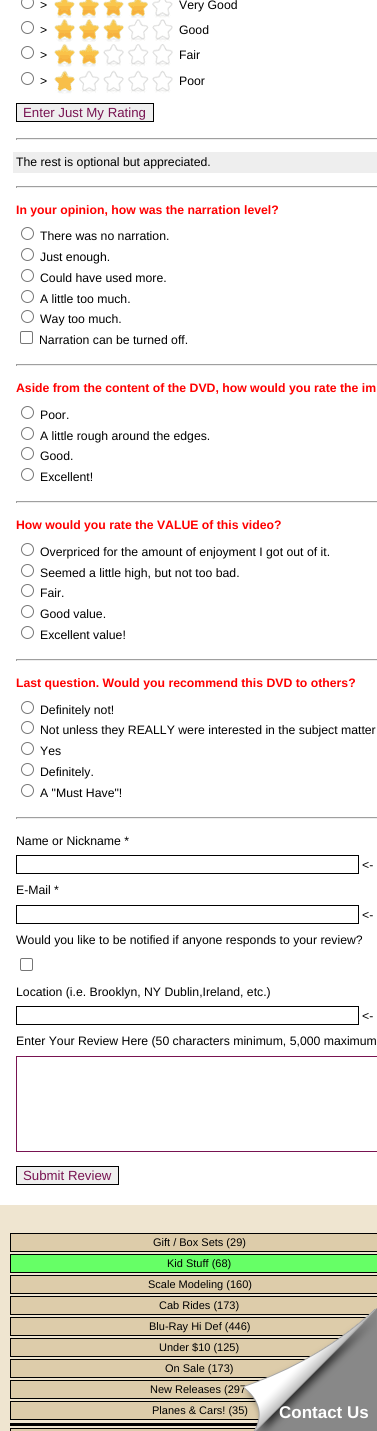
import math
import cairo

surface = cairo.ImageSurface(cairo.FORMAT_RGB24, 377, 1431)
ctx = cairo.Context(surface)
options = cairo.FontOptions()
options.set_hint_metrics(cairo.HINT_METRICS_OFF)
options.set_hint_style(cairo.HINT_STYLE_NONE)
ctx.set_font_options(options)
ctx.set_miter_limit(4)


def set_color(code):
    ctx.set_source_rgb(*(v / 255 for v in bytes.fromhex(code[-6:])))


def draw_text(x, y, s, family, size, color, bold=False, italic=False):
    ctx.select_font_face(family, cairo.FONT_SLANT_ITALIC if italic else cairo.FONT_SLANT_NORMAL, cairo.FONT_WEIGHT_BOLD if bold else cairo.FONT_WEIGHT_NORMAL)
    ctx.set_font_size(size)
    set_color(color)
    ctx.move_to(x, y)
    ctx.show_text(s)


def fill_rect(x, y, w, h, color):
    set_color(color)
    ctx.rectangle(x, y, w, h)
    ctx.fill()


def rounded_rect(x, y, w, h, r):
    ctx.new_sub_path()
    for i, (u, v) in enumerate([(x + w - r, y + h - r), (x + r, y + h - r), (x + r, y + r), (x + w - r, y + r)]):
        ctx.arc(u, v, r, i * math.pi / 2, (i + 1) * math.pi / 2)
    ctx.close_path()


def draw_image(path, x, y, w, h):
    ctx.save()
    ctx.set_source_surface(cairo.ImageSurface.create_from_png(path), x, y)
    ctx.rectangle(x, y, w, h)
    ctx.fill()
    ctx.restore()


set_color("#ffffff")
ctx.paint()
ctx.arc(27.5, 2.5, 6, 0, 2 * math.pi)
set_color("#767676")
ctx.set_line_width(1)
ctx.stroke()
draw_text(40, 9, ">", "Liberation Sans", 12.25, "#000000")
draw_image("assets/img1.png", 54, 0, 119, 18)
draw_text(179, 9, "Very Good", "Liberation Sans", 12.25, "#000000")
ctx.new_path()
ctx.arc(27.5, 27.5, 6, 0, 2 * math.pi)
set_color("#767676")
ctx.stroke()
draw_text(40, 34, ">", "Liberation Sans", 12.25, "#000000")
draw_image("assets/img2.png", 54, 19, 119, 23)
draw_text(179, 34, "Good", "Liberation Sans", 12.25, "#000000")
ctx.new_path()
ctx.arc(27.5, 52.5, 6, 0, 2 * math.pi)
set_color("#767676")
ctx.stroke()
draw_text(40, 59, ">", "Liberation Sans", 12.25, "#000000")
draw_image("assets/img3.png", 54, 44, 119, 23)
draw_text(179, 59, "Fair", "Liberation Sans", 12.25, "#000000")
ctx.new_path()
ctx.arc(27.5, 78.5, 6, 0, 2 * math.pi)
set_color("#767676")
ctx.stroke()
draw_text(40, 85, ">", "Liberation Sans", 12.25, "#000000")
draw_image("assets/img4.png", 54, 70, 119, 24)
draw_text(179, 85, "Poor", "Liberation Sans", 12.25, "#000000")
set_color("#efefef")
ctx.rectangle(16.5, 103.5, 137, 18)
ctx.fill_preserve()
set_color("#000000")
ctx.stroke()
draw_text(23, 117, "Enter Just My Rating", "Liberation Sans", 13.25, "#781351")
fill_rect(16, 138, 361, 1, "#9f9f9f")
fill_rect(16, 139, 361, 1, "#eeeeee")
fill_rect(16, 138, 1, 2, "#9f9f9f")
fill_rect(13, 152, 364, 21, "#eeeeee")
draw_text(16, 166, "The rest is optional but appreciated.", "Liberation Sans", 12.25, "#000000")
fill_rect(16, 186, 361, 1, "#9f9f9f")
fill_rect(16, 187, 361, 1, "#eeeeee")
fill_rect(16, 186, 1, 2, "#9f9f9f")
draw_text(16, 214, "In your opinion, how was the narration level?", "Liberation Sans", 12.25, "#ff0000", bold=True)
ctx.new_path()
ctx.arc(27.5, 233.5, 6, 0, 2 * math.pi)
set_color("#767676")
ctx.stroke()
draw_text(40, 240, "There was no narration.", "Liberation Sans", 12.25, "#000000")
ctx.new_path()
ctx.arc(27.5, 254.5, 6, 0, 2 * math.pi)
set_color("#767676")
ctx.stroke()
draw_text(40, 261, "Just enough.", "Liberation Sans", 12.25, "#000000")
ctx.new_path()
ctx.arc(27.5, 275.5, 6, 0, 2 * math.pi)
set_color("#767676")
ctx.stroke()
draw_text(40, 282, "Could have used more.", "Liberation Sans", 12.25, "#000000")
ctx.new_path()
ctx.arc(27.5, 296.5, 6, 0, 2 * math.pi)
set_color("#767676")
ctx.stroke()
draw_text(40, 303, "A little too much.", "Liberation Sans", 12.25, "#000000")
ctx.new_path()
ctx.arc(27.5, 316.5, 6, 0, 2 * math.pi)
set_color("#767676")
ctx.stroke()
draw_text(40, 323, "Way too much.", "Liberation Sans", 12.25, "#000000")
rounded_rect(20.5, 331.5, 12, 12, 1.5)
set_color("#767676")
ctx.stroke()
draw_text(39, 344, "Narration can be turned off.", "Liberation Sans", 12.25, "#000000")
fill_rect(16, 364, 361, 1, "#9f9f9f")
fill_rect(16, 365, 361, 1, "#eeeeee")
fill_rect(16, 364, 1, 2, "#9f9f9f")
draw_text(16, 392, "Aside from the content of the DVD, how would you rate the im", "Liberation Sans", 12.25, "#ff0000", bold=True)
ctx.new_path()
ctx.arc(27.5, 412.5, 6, 0, 2 * math.pi)
set_color("#767676")
ctx.stroke()
draw_text(40, 419, "Poor.", "Liberation Sans", 12.25, "#000000")
ctx.new_path()
ctx.arc(27.5, 433.5, 6, 0, 2 * math.pi)
set_color("#767676")
ctx.stroke()
draw_text(40, 440, "A little rough around the edges.", "Liberation Sans", 12.25, "#000000")
ctx.new_path()
ctx.arc(27.5, 453.5, 6, 0, 2 * math.pi)
set_color("#767676")
ctx.stroke()
draw_text(40, 460, "Good.", "Liberation Sans", 12.25, "#000000")
ctx.new_path()
ctx.arc(27.5, 474.5, 6, 0, 2 * math.pi)
set_color("#767676")
ctx.stroke()
draw_text(40, 481, "Excellent!", "Liberation Sans", 12.25, "#000000")
fill_rect(16, 501, 361, 1, "#9f9f9f")
fill_rect(16, 502, 361, 1, "#eeeeee")
fill_rect(16, 501, 1, 2, "#9f9f9f")
draw_text(16, 529, "How would you rate the VALUE of this video?", "Liberation Sans", 12.25, "#ff0000", bold=True)
ctx.new_path()
ctx.arc(27.5, 549.5, 6, 0, 2 * math.pi)
set_color("#767676")
ctx.stroke()
draw_text(40, 556, "Overpriced for the amount of enjoyment I got out of it.", "Liberation Sans", 12.25, "#000000")
ctx.new_path()
ctx.arc(27.5, 570.5, 6, 0, 2 * math.pi)
set_color("#767676")
ctx.stroke()
draw_text(40, 577, "Seemed a little high, but not too bad.", "Liberation Sans", 12.25, "#000000")
ctx.new_path()
ctx.arc(27.5, 590.5, 6, 0, 2 * math.pi)
set_color("#767676")
ctx.stroke()
draw_text(40, 597, "Fair.", "Liberation Sans", 12.25, "#000000")
ctx.new_path()
ctx.arc(27.5, 611.5, 6, 0, 2 * math.pi)
set_color("#767676")
ctx.stroke()
draw_text(40, 618, "Good value.", "Liberation Sans", 12.25, "#000000")
ctx.new_path()
ctx.arc(27.5, 632.5, 6, 0, 2 * math.pi)
set_color("#767676")
ctx.stroke()
draw_text(40, 639, "Excellent value!", "Liberation Sans", 12.25, "#000000")
fill_rect(16, 659, 361, 1, "#9f9f9f")
fill_rect(16, 660, 361, 1, "#eeeeee")
fill_rect(16, 659, 1, 2, "#9f9f9f")
draw_text(16, 687, "Last question. Would you recommend this DVD to others?", "Liberation Sans", 12.25, "#ff0000", bold=True)
ctx.new_path()
ctx.arc(27.5, 707.5, 6, 0, 2 * math.pi)
set_color("#767676")
ctx.stroke()
draw_text(40, 714, "Definitely not!", "Liberation Sans", 12.25, "#000000")
ctx.new_path()
ctx.arc(27.5, 727.5, 6, 0, 2 * math.pi)
set_color("#767676")
ctx.stroke()
draw_text(40, 734, "Not unless they REALLY were interested in the subject matter", "Liberation Sans", 12.25, "#000000")
ctx.new_path()
ctx.arc(27.5, 748.5, 6, 0, 2 * math.pi)
set_color("#767676")
ctx.stroke()
draw_text(40, 755, "Yes", "Liberation Sans", 12.25, "#000000")
ctx.new_path()
ctx.arc(27.5, 769.5, 6, 0, 2 * math.pi)
set_color("#767676")
ctx.stroke()
draw_text(40, 776, "Definitely.", "Liberation Sans", 12.25, "#000000")
ctx.new_path()
ctx.arc(27.5, 790.5, 6, 0, 2 * math.pi)
set_color("#767676")
ctx.stroke()
draw_text(40, 797, "A \"Must Have\"!", "Liberation Sans", 12.25, "#000000")
fill_rect(16, 817, 361, 1, "#9f9f9f")
fill_rect(16, 818, 361, 1, "#eeeeee")
fill_rect(16, 817, 1, 2, "#9f9f9f")
draw_text(16, 845, "Name or Nickname *", "Liberation Sans", 12.25, "#000000")
ctx.rectangle(16.5, 855.5, 342, 18)
ctx.stroke()
draw_text(362, 869, "<-", "Liberation Sans", 12.25, "#000000")
draw_text(16, 894, "E-Mail *", "Liberation Sans", 12.25, "#000000")
ctx.rectangle(16.5, 905.5, 342, 18)
ctx.stroke()
draw_text(362, 919, "<-", "Liberation Sans", 12.25, "#000000")
draw_text(16, 944, "Would you like to be notified if anyone responds to your review?", "Liberation Sans", 12.25, "#000000")
rounded_rect(20.5, 958.5, 12, 12, 1.5)
set_color("#767676")
ctx.stroke()
draw_text(16, 996, "Location (i.e. Brooklyn, NY Dublin,Ireland, etc.)", "Liberation Sans", 12.25, "#000000")
ctx.rectangle(16.5, 1006.5, 342, 18)
ctx.stroke()
draw_text(362, 1020, "<-", "Liberation Sans", 12.25, "#000000")
draw_text(16, 1045, "Enter Your Review Here (50 characters minimum, 5,000 maximum", "Liberation Sans", 12.25, "#000000")
ctx.rectangle(16.5, 1056.5, 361, 95)
set_color("#781351")
ctx.stroke()
set_color("#efefef")
ctx.rectangle(16.5, 1166.5, 102, 18)
ctx.fill_preserve()
set_color("#000000")
ctx.stroke()
draw_text(23, 1180, "Submit Review", "Liberation Sans", 13.25, "#781351")
fill_rect(0, 1205, 377, 226, "#efe5d0")
set_color("#ddccaa")
ctx.rectangle(10.5, 1233.5, 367, 18)
ctx.fill_preserve()
set_color("#000000")
ctx.stroke()
draw_text(153, 1246, "Gift / Box Sets (29)", "Liberation Sans", 11, "#000000")
set_color("#66ff66")
ctx.rectangle(10.5, 1254.5, 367, 18)
ctx.fill_preserve()
set_color("#000000")
ctx.stroke()
draw_text(167, 1267, "Kid Stuff (68)", "Liberation Sans", 11, "#000000")
set_color("#ddccaa")
ctx.rectangle(10.5, 1275.5, 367, 18)
ctx.fill_preserve()
set_color("#000000")
ctx.stroke()
draw_text(148, 1288, "Scale Modeling (160)", "Liberation Sans", 11, "#000000")
set_color("#ddccaa")
ctx.rectangle(10.5, 1296.5, 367, 18)
ctx.fill_preserve()
set_color("#000000")
ctx.stroke()
draw_text(159, 1309, "Cab Rides (173)", "Liberation Sans", 11, "#000000")
fill_rect(11, 1318, 354, 17, "#ddccaa")
ctx.rectangle(10.5, 1317.5, 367, 18)
set_color("#000000")
ctx.stroke()
draw_text(149, 1330, "Blu-Ray Hi Def (446)", "Liberation Sans", 11, "#000000")
fill_rect(11, 1339, 326, 17, "#ddccaa")
ctx.rectangle(10.5, 1338.5, 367, 18)
set_color("#000000")
ctx.stroke()
draw_text(159, 1351, "Under $10 (125)", "Liberation Sans", 11, "#000000")
fill_rect(11, 1360, 292, 17, "#ddccaa")
ctx.rectangle(10.5, 1359.5, 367, 18)
set_color("#000000")
ctx.stroke()
draw_text(165, 1372, "On Sale (173)", "Liberation Sans", 11, "#000000")
fill_rect(11, 1381, 246, 17, "#ddccaa")
ctx.rectangle(10.5, 1380.5, 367, 18)
set_color("#000000")
ctx.stroke()
draw_text(150, 1393, "New Releases (297", "Liberation Sans", 11, "#000000")
fill_rect(11, 1402, 248, 17, "#ddccaa")
ctx.rectangle(10.5, 1401.5, 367, 18)
set_color("#000000")
ctx.stroke()
draw_text(152, 1414, "Planes & Cars! (35)", "Liberation Sans", 11, "#000000")
fill_rect(10, 1423, 248, 3, "#000000")
fill_rect(10, 1429, 245, 2, "#ddccaa")
ctx.rectangle(10.5, 1428.5, 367, 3)
set_color("#000000")
ctx.stroke()
set_color("#888888")
ctx.new_path()
ctx.move_to(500, 1431)
ctx.line_to(254, 1431)
ctx.line_to(377, 1308)
ctx.close_path()
ctx.fill()
draw_image("assets/img5.png", 243, 1308, 133, 123)
draw_text(279, 1418, "Contact Us", "Liberation Sans", 17, "#ffffff", bold=True)
surface.write_to_png("output.png")
